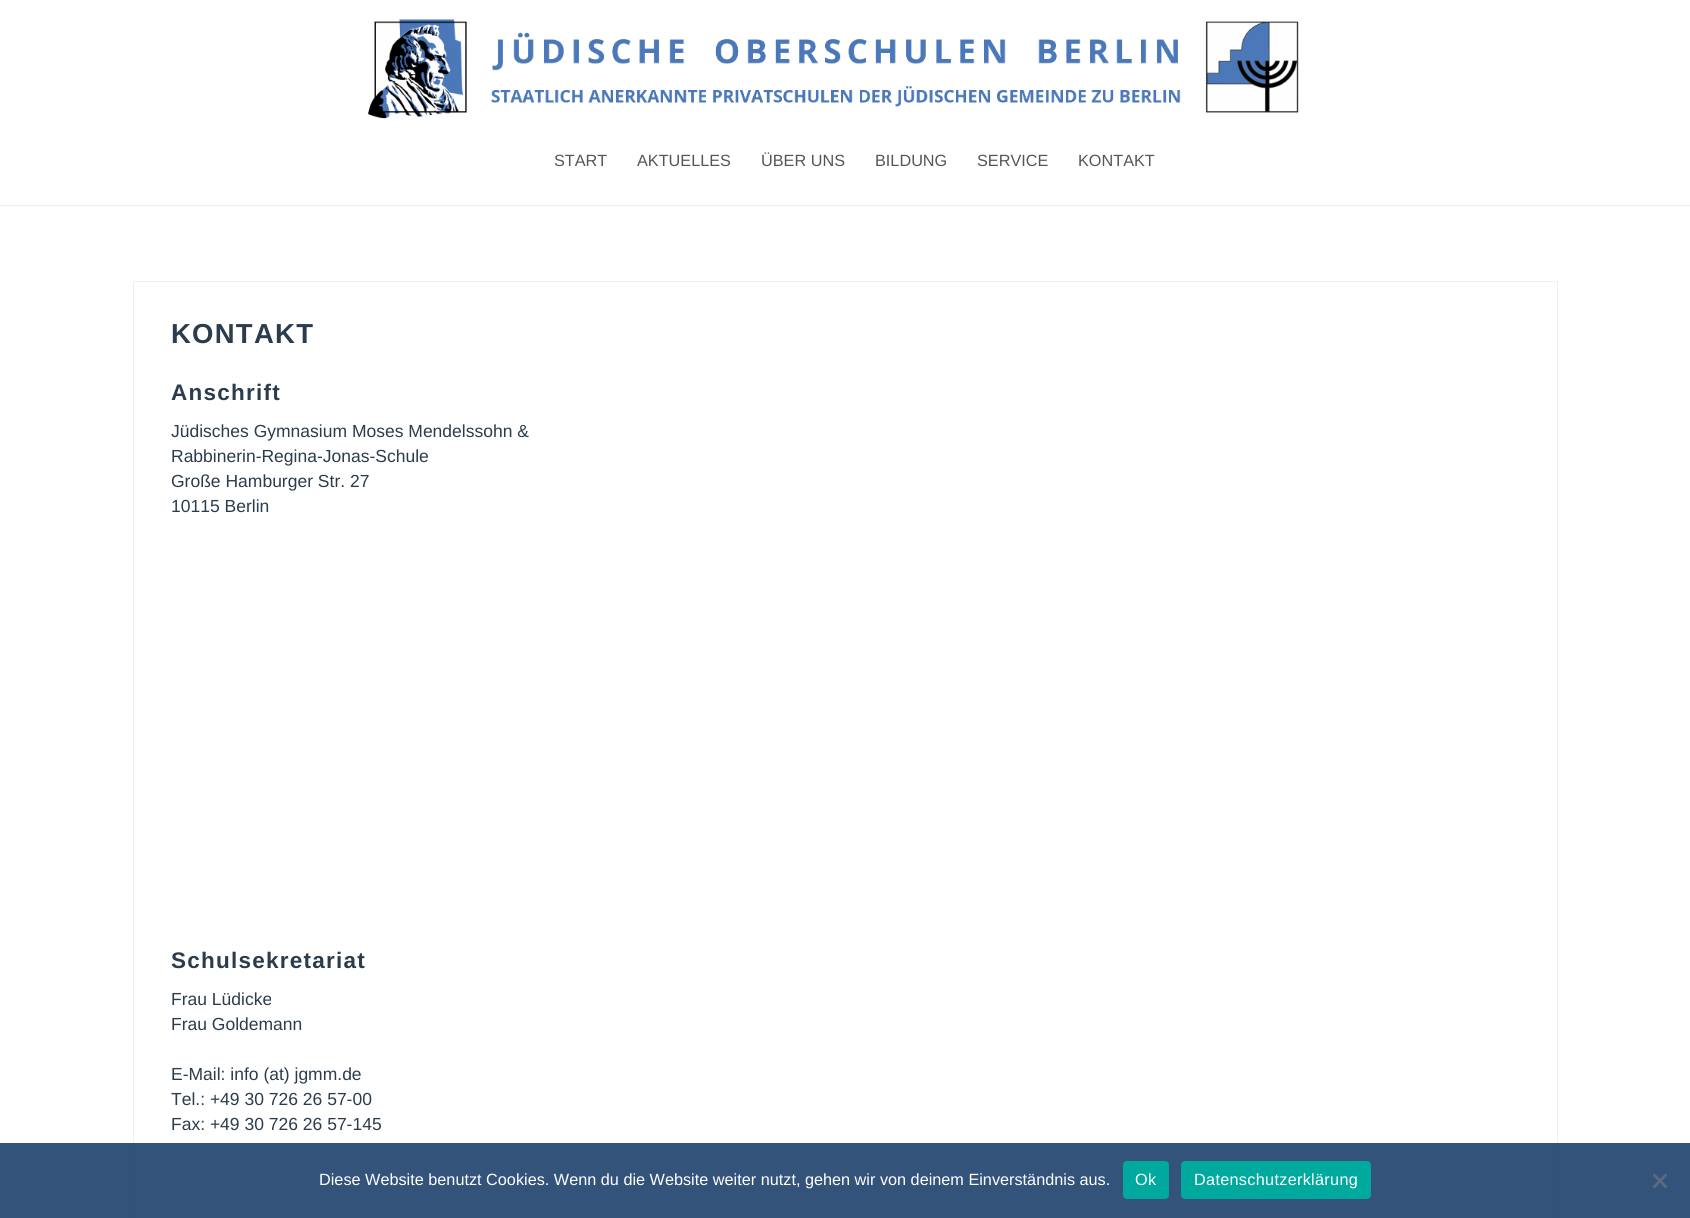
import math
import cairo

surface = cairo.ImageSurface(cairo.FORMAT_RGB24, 1690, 1218)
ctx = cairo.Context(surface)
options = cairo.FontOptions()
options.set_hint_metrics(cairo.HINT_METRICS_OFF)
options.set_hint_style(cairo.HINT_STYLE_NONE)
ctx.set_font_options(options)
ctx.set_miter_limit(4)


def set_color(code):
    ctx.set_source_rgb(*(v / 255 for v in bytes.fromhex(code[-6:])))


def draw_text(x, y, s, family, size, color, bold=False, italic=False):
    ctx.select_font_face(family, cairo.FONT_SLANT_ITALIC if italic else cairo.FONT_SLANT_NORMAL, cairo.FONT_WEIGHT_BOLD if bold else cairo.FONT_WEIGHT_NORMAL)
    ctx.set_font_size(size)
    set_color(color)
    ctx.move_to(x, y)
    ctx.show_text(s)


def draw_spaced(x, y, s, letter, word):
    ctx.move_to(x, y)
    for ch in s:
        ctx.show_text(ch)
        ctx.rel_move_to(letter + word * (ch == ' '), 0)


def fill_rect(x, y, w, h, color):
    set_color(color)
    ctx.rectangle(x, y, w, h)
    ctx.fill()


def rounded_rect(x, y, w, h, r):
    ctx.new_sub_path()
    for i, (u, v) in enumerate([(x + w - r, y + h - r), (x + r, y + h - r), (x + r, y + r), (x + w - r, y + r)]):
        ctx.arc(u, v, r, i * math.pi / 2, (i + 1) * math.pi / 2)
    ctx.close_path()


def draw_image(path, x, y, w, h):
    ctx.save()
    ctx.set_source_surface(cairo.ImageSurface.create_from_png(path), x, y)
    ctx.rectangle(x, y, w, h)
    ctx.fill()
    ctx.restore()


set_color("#ffffff")
ctx.paint()
fill_rect(0, 205, 1690, 1, "#f0f0f0")
draw_image("assets/img1.png", 367, 18, 932, 101)
draw_text(554, 166, "START", "Liberation Sans", 16.25, "#53565a")
draw_text(637, 166, "AKTUELLES", "Liberation Sans", 16.25, "#53565a")
draw_text(761, 166, "ÜBER UNS", "Liberation Sans", 16.25, "#53565a")
draw_text(875, 166, "BILDUNG", "Liberation Sans", 16.25, "#53565a")
draw_text(977, 166, "SERVICE", "Liberation Sans", 16.25, "#53565a")
draw_text(1078, 166, "KONTAKT", "Liberation Sans", 16.25, "#53565a")
ctx.rectangle(133.5, 281.5, 1424, 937)
set_color("#f0f0f0")
ctx.set_line_width(1)
ctx.stroke()
ctx.select_font_face("Liberation Sans", cairo.FONT_SLANT_NORMAL, cairo.FONT_WEIGHT_BOLD)
ctx.set_font_size(27.5)
set_color("#2b3c4d")
draw_spaced(171, 343, "KONTAKT", 1.25, 0)
ctx.set_font_size(22.5)
draw_spaced(171, 400, "Anschrift", 1.25, 0)
draw_text(171, 437, "Jüdisches Gymnasium Moses Mendelssohn &", "Liberation Sans", 17.5, "#2b3c4d")
draw_text(171, 462, "Rabbinerin-Regina-Jonas-Schule", "Liberation Sans", 17.5, "#2b3c4d")
draw_text(171, 487, "Große Hamburger Str. 27", "Liberation Sans", 17.5, "#2b3c4d")
draw_text(171, 512, "10115 Berlin", "Liberation Sans", 17.5, "#2b3c4d")
ctx.select_font_face("Liberation Sans", cairo.FONT_SLANT_NORMAL, cairo.FONT_WEIGHT_BOLD)
ctx.set_font_size(22.5)
draw_spaced(171, 968, "Schulsekretariat", 1.25, 0)
draw_text(171, 1005, "Frau Lüdicke", "Liberation Sans", 17.5, "#2b3c4d")
draw_text(171, 1030, "Frau Goldemann", "Liberation Sans", 17.5, "#2b3c4d")
draw_text(171, 1080, "E-Mail: info (at) jgmm.de", "Liberation Sans", 17.5, "#2b3c4d")
draw_text(171, 1105, "Tel.: +49 30 726 26 57-00", "Liberation Sans", 17.5, "#2b3c4d")
draw_text(171, 1130, "Fax: +49 30 726 26 57-145", "Liberation Sans", 17.5, "#2b3c4d")
ctx.set_source_rgba(0.059, 0.204, 0.388, 0.84)
ctx.rectangle(0, 1143, 1690, 75)
ctx.fill()
draw_text(319, 1185, "Diese Website benutzt Cookies. Wenn du die Website weiter nutzt, gehen wir von deinem Einverständnis aus.", "Liberation Sans", 16.25, "#ffffff")
set_color("#00a99d")
rounded_rect(1123, 1161, 46, 38, 4)
ctx.fill()
set_color("#ffffff")
draw_spaced(1135, 1185, "Ok", 0.3, 0)
set_color("#00a99d")
rounded_rect(1181, 1161, 190, 38, 4)
ctx.fill()
set_color("#ffffff")
draw_spaced(1194, 1185, "Datenschutzerklärung", 0.3, 0)
set_color("#5b6a7e")
ctx.new_path()
ctx.move_to(1665.5, 1173.5)
ctx.line_to(1667.5, 1175)
ctx.line_to(1654.5, 1188.5)
ctx.line_to(1652.5, 1186.5)
ctx.close_path()
ctx.fill()
ctx.new_path()
ctx.move_to(1652.5, 1175)
ctx.line_to(1654.5, 1173.5)
ctx.line_to(1667.5, 1186.5)
ctx.line_to(1665.5, 1188.5)
ctx.close_path()
ctx.fill()
surface.write_to_png("output.png")
